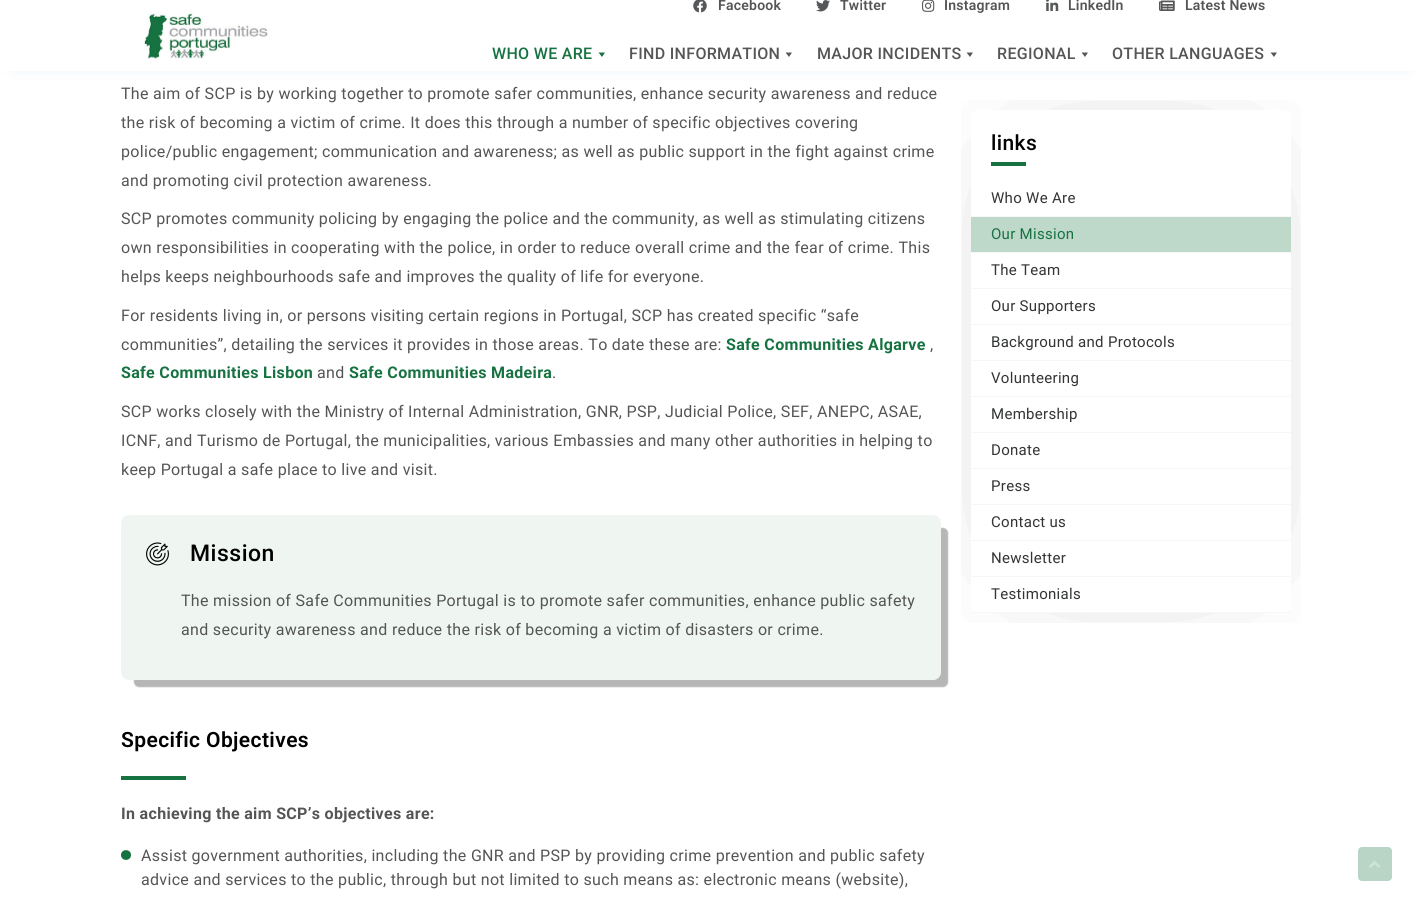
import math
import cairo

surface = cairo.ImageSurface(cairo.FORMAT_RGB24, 1422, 901)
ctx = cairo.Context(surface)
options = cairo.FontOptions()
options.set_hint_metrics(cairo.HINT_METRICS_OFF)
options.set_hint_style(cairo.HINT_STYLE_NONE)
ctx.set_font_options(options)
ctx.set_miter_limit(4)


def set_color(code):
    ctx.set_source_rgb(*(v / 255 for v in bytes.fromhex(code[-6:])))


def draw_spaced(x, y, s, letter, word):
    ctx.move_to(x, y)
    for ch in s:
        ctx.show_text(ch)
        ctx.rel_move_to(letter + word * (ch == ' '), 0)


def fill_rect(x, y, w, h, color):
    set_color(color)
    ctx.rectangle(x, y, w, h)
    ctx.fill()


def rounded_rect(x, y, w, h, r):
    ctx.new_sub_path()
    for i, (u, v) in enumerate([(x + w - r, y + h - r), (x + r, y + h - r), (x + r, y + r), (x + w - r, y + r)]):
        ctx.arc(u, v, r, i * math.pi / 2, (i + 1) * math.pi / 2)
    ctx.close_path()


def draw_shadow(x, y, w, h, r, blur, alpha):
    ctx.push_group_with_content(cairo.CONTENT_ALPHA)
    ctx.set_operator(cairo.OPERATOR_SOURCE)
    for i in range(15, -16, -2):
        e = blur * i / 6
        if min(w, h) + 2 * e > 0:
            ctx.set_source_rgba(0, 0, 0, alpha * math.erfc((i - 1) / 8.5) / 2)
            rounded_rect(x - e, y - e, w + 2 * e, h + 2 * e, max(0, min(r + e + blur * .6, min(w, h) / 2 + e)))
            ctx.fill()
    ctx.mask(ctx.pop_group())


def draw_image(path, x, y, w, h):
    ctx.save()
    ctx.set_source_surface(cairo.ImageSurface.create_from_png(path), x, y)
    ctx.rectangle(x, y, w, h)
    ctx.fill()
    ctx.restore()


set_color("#ffffff")
ctx.paint()
set_color("#4cb0d1")
draw_shadow(15, 15, 1392, 41, 0, 10, 1)
ctx.save()
ctx.set_fill_rule(cairo.FILL_RULE_EVEN_ODD)
ctx.new_path()
ctx.move_to(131, 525)
ctx.line_to(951, 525)
ctx.line_to(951, 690)
ctx.line_to(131, 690)
ctx.close_path()
ctx.move_to(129, 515)
ctx.line_to(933, 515)
ctx.curve_to(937.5, 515, 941, 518.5, 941, 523)
ctx.line_to(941, 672)
ctx.curve_to(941, 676.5, 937.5, 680, 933, 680)
ctx.line_to(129, 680)
ctx.curve_to(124.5, 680, 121, 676.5, 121, 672)
ctx.line_to(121, 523)
ctx.curve_to(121, 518.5, 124.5, 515, 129, 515)
ctx.close_path()
ctx.clip()
set_color("#b6b6b6")
draw_shadow(134, 528, 814, 159, 5, 0.5, 1)
ctx.restore()
ctx.set_source_rgba(0.086, 0.447, 0.255, 0.07)
rounded_rect(121, 515, 820, 165, 8)
ctx.fill()
ctx.save()
ctx.rectangle(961, 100, 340, 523)
ctx.clip()
ctx.set_fill_rule(cairo.FILL_RULE_EVEN_ODD)
ctx.new_path()
ctx.move_to(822, 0)
ctx.line_to(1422, 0)
ctx.line_to(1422, 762)
ctx.line_to(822, 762)
ctx.close_path()
ctx.move_to(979, 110)
ctx.line_to(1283, 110)
ctx.curve_to(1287.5, 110, 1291, 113.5, 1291, 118)
ctx.line_to(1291, 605)
ctx.curve_to(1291, 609.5, 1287.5, 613, 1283, 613)
ctx.line_to(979, 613)
ctx.curve_to(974.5, 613, 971, 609.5, 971, 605)
ctx.line_to(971, 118)
ctx.curve_to(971, 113.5, 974.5, 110, 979, 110)
ctx.close_path()
ctx.clip()
set_color("#000000")
draw_shadow(1050, 189, 162, 345, 0, 75.5, 0.3)
ctx.restore()
fill_rect(0, 0, 1422, 71, "#ffffff")
draw_image("assets/img1.png", 144, 13, 124, 46)
draw_image("assets/img2.png", 693, 0, 14, 13)
ctx.select_font_face("Roboto SemiBold")
ctx.set_font_size(14)
set_color("#555555")
draw_spaced(718, 10, "Facebook", 0.25, 0)
draw_image("assets/img3.png", 816, 0, 14, 12)
draw_spaced(840, 10, "Twitter", 0.25, 0)
draw_image("assets/img4.png", 922, 0, 13, 12)
draw_spaced(944, 10, "Instagram", 0.25, 0)
draw_image("assets/img5.png", 1046, 0, 13, 11)
draw_spaced(1068, 10, "LinkedIn", 0.25, 0)
draw_image("assets/img6.png", 1159, 0, 16, 11)
draw_spaced(1185, 10, "Latest News", 0.25, 0)
ctx.select_font_face("Roboto Medium")
ctx.set_font_size(16)
set_color("#167241")
draw_spaced(492, 59, "WHO WE ARE", 0.32, 0)
ctx.new_path()
ctx.move_to(605, 52.5)
ctx.line_to(602, 57)
ctx.line_to(598.5, 52.5)
ctx.close_path()
ctx.fill()
set_color("#555555")
draw_spaced(629, 59, "FIND INFORMATION", 0.32, 0)
set_color("#555759")
ctx.new_path()
ctx.move_to(792, 52.5)
ctx.line_to(789, 57)
ctx.line_to(785.5, 52.5)
ctx.close_path()
ctx.fill()
set_color("#555555")
draw_spaced(817, 59, "MAJOR INCIDENTS", 0.32, 0)
set_color("#555759")
ctx.new_path()
ctx.move_to(973, 52.5)
ctx.line_to(970, 57)
ctx.line_to(966.5, 52.5)
ctx.close_path()
ctx.fill()
set_color("#555555")
draw_spaced(997, 59, "REGIONAL", 0.32, 0)
set_color("#555759")
ctx.new_path()
ctx.move_to(1088, 52.5)
ctx.line_to(1085, 57)
ctx.line_to(1081.5, 52.5)
ctx.close_path()
ctx.fill()
set_color("#555555")
draw_spaced(1112, 59, "OTHER LANGUAGES", 0.32, 0)
set_color("#555759")
ctx.new_path()
ctx.move_to(1277, 52.5)
ctx.line_to(1274, 57)
ctx.line_to(1270.5, 52.5)
ctx.close_path()
ctx.fill()
ctx.select_font_face("Roboto")
set_color("#555555")
draw_spaced(121, 99, "The aim of SCP is by working together to promote safer communities, enhance security awareness and reduce", 0.32, 0)
draw_spaced(121, 128, "the risk of becoming a victim of crime. It does this through a number of specific objectives covering", 0.32, 0)
draw_spaced(121, 157, "police/public engagement; communication and awareness; as well as public support in the fight against crime", 0.32, 0)
draw_spaced(121, 186, "and promoting civil protection awareness.", 0.32, 0)
draw_spaced(121, 224, "SCP promotes community policing by engaging the police and the community, as well as stimulating citizens", 0.32, 0)
draw_spaced(121, 253, "own responsibilities in cooperating with the police, in order to reduce overall crime and the fear of crime. This", 0.32, 0)
draw_spaced(121, 282, "helps keeps neighbourhoods safe and improves the quality of life for everyone.", 0.32, 0)
draw_spaced(121, 321, "For residents living in, or persons visiting certain regions in Portugal, SCP has created specific “safe", 0.32, 0)
draw_spaced(121, 350, "communities”, detailing the services it provides in those areas. To date these are:", 0.32, 0)
ctx.select_font_face("Roboto", cairo.FONT_SLANT_NORMAL, cairo.FONT_WEIGHT_BOLD)
set_color("#167241")
draw_spaced(726, 350, "Safe Communities Algarve", 0.32, 0)
ctx.select_font_face("Roboto")
set_color("#555555")
draw_spaced(930, 350, ",", 0.32, 0)
ctx.select_font_face("Roboto", cairo.FONT_SLANT_NORMAL, cairo.FONT_WEIGHT_BOLD)
set_color("#167241")
draw_spaced(121, 378, "Safe Communities Lisbon", 0.32, 0)
ctx.select_font_face("Roboto")
set_color("#555555")
draw_spaced(317, 378, "and", 0.32, 0)
ctx.select_font_face("Roboto", cairo.FONT_SLANT_NORMAL, cairo.FONT_WEIGHT_BOLD)
set_color("#167241")
draw_spaced(349, 378, "Safe Communities Madeira", 0.32, 0)
ctx.select_font_face("Roboto")
set_color("#555555")
draw_spaced(552, 378, ".", 0.32, 0)
draw_spaced(121, 417, "SCP works closely with the Ministry of Internal Administration, GNR, PSP, Judicial Police, SEF, ANEPC, ASAE,", 0.32, 0)
draw_spaced(121, 446, "ICNF, and Turismo de Portugal, the municipalities, various Embassies and many other authorities in helping to", 0.32, 0)
draw_spaced(121, 475, "keep Portugal a safe place to live and visit.", 0.32, 0)
draw_image("assets/img7.png", 146, 542, 23, 24)
ctx.select_font_face("Roboto Medium")
ctx.set_font_size(23)
set_color("#000000")
draw_spaced(190, 561, "Mission", 0.5, 0)
ctx.select_font_face("Roboto")
ctx.set_font_size(16)
set_color("#555555")
draw_spaced(181, 606, "The mission of Safe Communities Portugal is to promote safer communities, enhance public safety", 0.32, 0)
draw_spaced(181, 635, "and security awareness and reduce the risk of becoming a victim of disasters or crime.", 0.32, 0)
ctx.select_font_face("Roboto SemiBold")
ctx.set_font_size(21)
set_color("#000000")
draw_spaced(121, 747, "Specific Objectives", 0.4, 0)
fill_rect(121, 776, 65, 4, "#167241")
ctx.select_font_face("Roboto", cairo.FONT_SLANT_NORMAL, cairo.FONT_WEIGHT_BOLD)
ctx.set_font_size(16)
set_color("#555555")
draw_spaced(121, 819, "In achieving the aim SCP’s objectives are:", 0.32, 0)
set_color("#167241")
ctx.new_path()
ctx.move_to(131, 855)
ctx.curve_to(131, 861.5, 121, 861.5, 121, 855)
ctx.curve_to(121, 848.5, 131, 848.5, 131, 855)
ctx.close_path()
ctx.fill()
ctx.select_font_face("Roboto")
set_color("#555555")
draw_spaced(141, 861, "Assist government authorities, including the GNR and PSP by providing crime prevention and public safety", 0.32, 0)
draw_spaced(141, 885, "advice and services to the public, through but not limited to such means as: electronic means (website),", 0.32, 0)
ctx.select_font_face("Roboto Medium")
ctx.set_font_size(21)
set_color("#000000")
draw_spaced(991, 150, "links", 0.4, 0)
fill_rect(991, 162, 35, 4, "#167241")
fill_rect(971, 216, 320, 1, "#f7f7f7")
ctx.select_font_face("Roboto")
ctx.set_font_size(15)
set_color("#333435")
draw_spaced(991, 203, "Who We Are", 0.3, 0)
fill_rect(971, 217, 320, 35, "#bed8ca")
fill_rect(971, 252, 320, 1, "#f7f7f7")
set_color("#167241")
draw_spaced(991, 239, "Our Mission", 0.3, 0)
fill_rect(971, 288, 320, 1, "#f7f7f7")
set_color("#333435")
draw_spaced(991, 275, "The Team", 0.3, 0)
fill_rect(971, 324, 320, 1, "#f7f7f7")
set_color("#333435")
draw_spaced(991, 311, "Our Supporters", 0.3, 0)
fill_rect(971, 360, 320, 1, "#f7f7f7")
set_color("#333435")
draw_spaced(991, 347, "Background and Protocols", 0.3, 0)
fill_rect(971, 396, 320, 1, "#f7f7f7")
set_color("#333435")
draw_spaced(991, 383, "Volunteering", 0.3, 0)
fill_rect(971, 432, 320, 1, "#f7f7f7")
set_color("#333435")
draw_spaced(991, 419, "Membership", 0.3, 0)
fill_rect(971, 468, 320, 1, "#f7f7f7")
set_color("#333435")
draw_spaced(991, 455, "Donate", 0.3, 0)
fill_rect(971, 504, 320, 1, "#f7f7f7")
set_color("#333435")
draw_spaced(991, 491, "Press", 0.3, 0)
fill_rect(971, 540, 320, 1, "#f7f7f7")
set_color("#333435")
draw_spaced(991, 527, "Contact us", 0.3, 0)
fill_rect(971, 576, 320, 1, "#f7f7f7")
set_color("#333435")
draw_spaced(991, 563, "Newsletter", 0.3, 0)
fill_rect(971, 612, 320, 1, "#f7f7f7")
set_color("#333435")
draw_spaced(991, 599, "Testimonials", 0.3, 0)
set_color("#b9d5c6")
rounded_rect(1358, 847, 34, 34, 4)
ctx.fill()
draw_image("assets/img8.png", 1369, 860, 11, 8)
surface.write_to_png("output.png")
